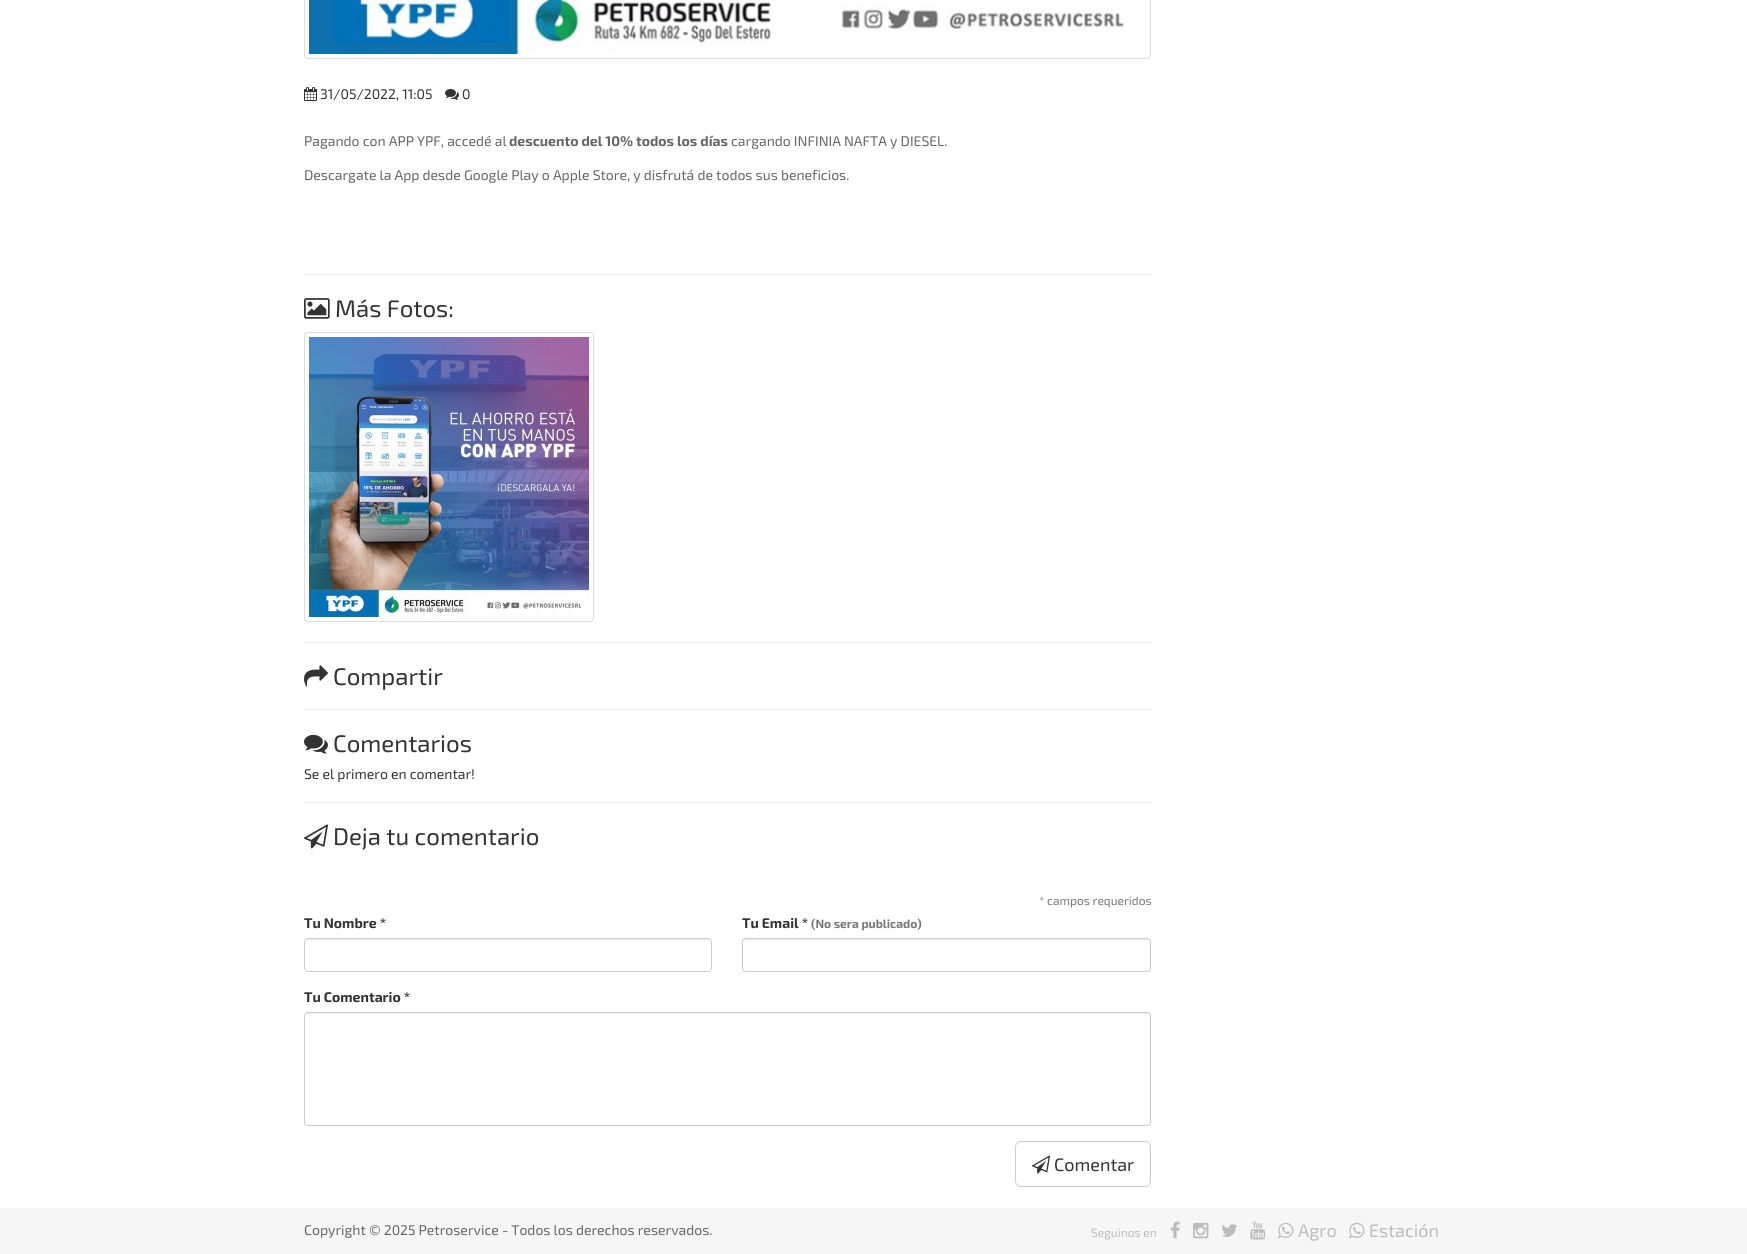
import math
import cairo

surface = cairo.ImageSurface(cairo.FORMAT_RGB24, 1747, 1254)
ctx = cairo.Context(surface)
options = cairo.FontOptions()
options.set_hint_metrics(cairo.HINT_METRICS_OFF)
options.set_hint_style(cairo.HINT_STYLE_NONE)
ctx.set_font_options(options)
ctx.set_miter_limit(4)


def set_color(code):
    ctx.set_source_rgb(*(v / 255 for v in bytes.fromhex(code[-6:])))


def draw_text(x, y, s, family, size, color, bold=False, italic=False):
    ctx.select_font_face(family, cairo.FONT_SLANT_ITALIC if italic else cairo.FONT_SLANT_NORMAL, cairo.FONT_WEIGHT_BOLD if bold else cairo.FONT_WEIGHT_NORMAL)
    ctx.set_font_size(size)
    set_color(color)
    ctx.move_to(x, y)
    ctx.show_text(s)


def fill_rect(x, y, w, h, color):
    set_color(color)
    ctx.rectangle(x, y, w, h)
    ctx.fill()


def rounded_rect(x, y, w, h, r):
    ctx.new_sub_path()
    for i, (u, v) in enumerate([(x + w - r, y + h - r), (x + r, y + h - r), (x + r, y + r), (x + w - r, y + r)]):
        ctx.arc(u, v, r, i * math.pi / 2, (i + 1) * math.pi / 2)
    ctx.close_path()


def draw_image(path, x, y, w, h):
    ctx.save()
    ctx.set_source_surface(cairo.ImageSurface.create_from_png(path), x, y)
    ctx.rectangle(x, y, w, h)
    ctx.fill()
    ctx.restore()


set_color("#ffffff")
ctx.paint()
rounded_rect(304.5, -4.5, 846, 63, 3.5)
set_color("#dddddd")
ctx.set_line_width(1)
ctx.stroke()
draw_image("assets/img1.png", 309, 0, 815, 54)
draw_image("assets/img2.png", 304, 87, 13, 14)
draw_text(320, 99, "31/05/2022, 11:05", "Exo 2", 14, "#333333")
draw_image("assets/img3.png", 445, 89, 14, 11)
draw_text(462, 99, "0", "Exo 2", 14, "#333333")
draw_text(304, 146, "Pagando con APP YPF, accedé al", "Exo 2", 14, "#666666")
draw_text(509, 146, "descuento del 10% todos los días", "Exo 2", 14, "#666666", bold=True)
draw_text(731, 146, "cargando INFINIA NAFTA y DIESEL.", "Exo 2", 14, "#666666")
draw_text(304, 180, "Descargate la App desde Google Play o Apple Store, y disfrutá de todos sus beneficios.", "Exo 2", 14, "#666666")
fill_rect(304, 274, 847, 1, "#eeeeee")
draw_image("assets/img4.png", 304, 298, 26, 21)
draw_text(335, 317, "Más Fotos:", "Exo 2", 24, "#333333")
rounded_rect(304.5, 332.5, 289, 289, 3.5)
set_color("#dddddd")
ctx.stroke()
draw_image("assets/img5.png", 309, 337, 280, 280)
fill_rect(304, 642, 847, 1, "#eeeeee")
draw_image("assets/img6.png", 304, 665, 24, 22)
draw_text(333, 685, "Compartir", "Exo 2", 24, "#333333")
fill_rect(304, 709, 847, 1, "#eeeeee")
draw_image("assets/img7.png", 304, 734, 24, 20)
draw_text(333, 752, "Comentarios", "Exo 2", 24, "#333333")
draw_text(304, 779, "Se el primero en comentar!", "Exo 2", 14, "#333333")
fill_rect(304, 802, 847, 1, "#eeeeee")
draw_image("assets/img8.png", 304, 824, 24, 25)
draw_text(333, 845, "Deja tu comentario", "Exo 2", 24, "#333333")
draw_text(1039, 905, "* campos requeridos", "Exo 2", 12, "#777777")
draw_text(304, 928, "Tu Nombre *", "Exo 2", 14, "#333333", bold=True)
set_color("#ececec")
ctx.new_path()
ctx.move_to(308, 940)
ctx.line_to(708, 940)
ctx.curve_to(710, 940, 711, 941, 711, 943)
ctx.curve_to(711, 941, 710, 939, 708, 939)
ctx.line_to(308, 939)
ctx.curve_to(306, 939, 305, 941, 305, 943)
ctx.curve_to(305, 941, 306, 940, 308, 940)
ctx.close_path()
ctx.fill()
rounded_rect(304.5, 938.5, 407, 33, 3.5)
set_color("#cccccc")
ctx.stroke()
draw_text(742, 928, "Tu Email *", "Exo 2", 14, "#333333", bold=True)
draw_text(811, 928, "(No sera publicado)", "Exo 2", 12, "#777777", bold=True)
set_color("#ececec")
ctx.new_path()
ctx.move_to(746, 940)
ctx.line_to(1147, 940)
ctx.curve_to(1149, 940, 1150, 941, 1150, 943)
ctx.curve_to(1150, 941, 1149, 939, 1147, 939)
ctx.line_to(746, 939)
ctx.curve_to(744, 939, 743, 941, 743, 943)
ctx.curve_to(743, 941, 744, 940, 746, 940)
ctx.close_path()
ctx.fill()
rounded_rect(742.5, 938.5, 408, 33, 3.5)
set_color("#cccccc")
ctx.stroke()
draw_text(304, 1002, "Tu Comentario *", "Exo 2", 14, "#333333", bold=True)
set_color("#ececec")
ctx.new_path()
ctx.move_to(308, 1014)
ctx.line_to(1147, 1014)
ctx.curve_to(1149, 1014, 1150, 1015, 1150, 1017)
ctx.curve_to(1150, 1015, 1149, 1013, 1147, 1013)
ctx.line_to(308, 1013)
ctx.curve_to(306, 1013, 305, 1015, 305, 1017)
ctx.curve_to(305, 1015, 306, 1014, 308, 1014)
ctx.close_path()
ctx.fill()
rounded_rect(304.5, 1012.5, 846, 113, 3.5)
set_color("#cccccc")
ctx.stroke()
rounded_rect(1015.5, 1141.5, 135, 45, 5.5)
ctx.stroke()
draw_image("assets/img9.png", 1032, 1155, 18, 19)
draw_text(1054, 1171, "Comentar", "Exo 2", 18, "#333333")
fill_rect(0, 1208, 1747, 46, "#f6f6f6")
draw_text(304, 1235, "Copyright © 2025 Petroservice - Todos los derechos reservados.", "Exo 2", 14, "#666666")
draw_text(1091, 1237, "Seguinos en", "Exo 2", 12, "#bcbcbc")
draw_image("assets/img10.png", 1171, 1221, 9, 18)
draw_image("assets/img11.png", 1193, 1222, 16, 17)
draw_image("assets/img12.png", 1221, 1224, 16, 13)
draw_image("assets/img13.png", 1250, 1221, 16, 19)
draw_image("assets/img14.png", 1278, 1222, 16, 17)
draw_text(1298, 1237, "Agro", "Exo 2", 18, "#bcbcbc")
draw_image("assets/img14.png", 1349, 1222, 16, 17)
draw_text(1369, 1237, "Estación", "Exo 2", 18, "#bcbcbc")
surface.write_to_png("output.png")
